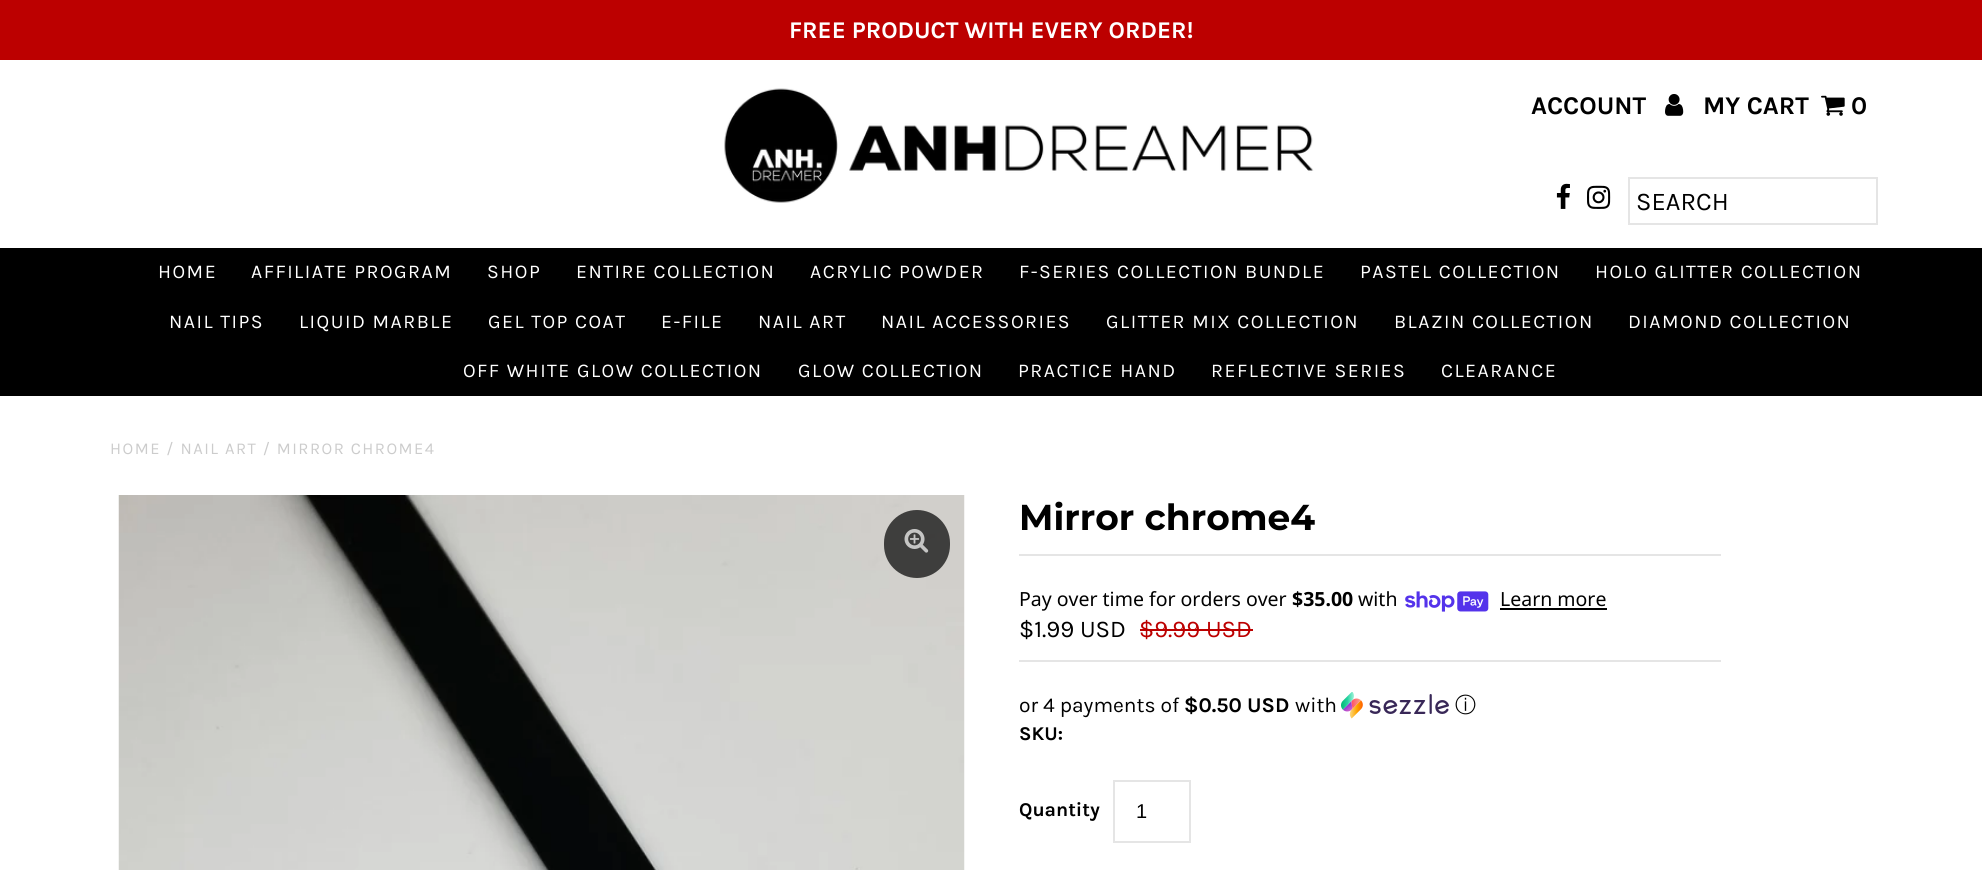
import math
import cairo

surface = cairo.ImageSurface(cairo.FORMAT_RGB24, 1982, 870)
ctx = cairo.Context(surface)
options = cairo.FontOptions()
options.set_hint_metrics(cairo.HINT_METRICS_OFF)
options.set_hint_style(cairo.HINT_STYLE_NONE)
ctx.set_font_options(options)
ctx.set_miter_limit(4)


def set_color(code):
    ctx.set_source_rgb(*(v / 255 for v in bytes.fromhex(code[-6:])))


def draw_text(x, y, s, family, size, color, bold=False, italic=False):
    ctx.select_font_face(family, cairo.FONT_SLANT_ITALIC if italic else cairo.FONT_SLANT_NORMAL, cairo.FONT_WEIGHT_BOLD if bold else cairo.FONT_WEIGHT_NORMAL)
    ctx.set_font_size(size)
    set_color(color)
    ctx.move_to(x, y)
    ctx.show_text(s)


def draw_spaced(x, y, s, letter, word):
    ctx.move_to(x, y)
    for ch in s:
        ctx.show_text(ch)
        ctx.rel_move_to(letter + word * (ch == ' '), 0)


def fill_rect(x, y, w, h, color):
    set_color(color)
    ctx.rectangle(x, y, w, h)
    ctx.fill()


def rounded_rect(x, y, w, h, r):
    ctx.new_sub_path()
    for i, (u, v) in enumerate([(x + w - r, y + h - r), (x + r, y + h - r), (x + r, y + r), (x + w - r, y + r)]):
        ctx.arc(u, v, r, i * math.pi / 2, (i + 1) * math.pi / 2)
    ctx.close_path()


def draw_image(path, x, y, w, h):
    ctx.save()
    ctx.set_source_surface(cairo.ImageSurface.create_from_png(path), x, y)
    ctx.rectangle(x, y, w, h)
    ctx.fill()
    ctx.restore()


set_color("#ffffff")
ctx.paint()
fill_rect(0, 0, 1982, 60, "#bc0000")
draw_text(789, 38, "FREE PRODUCT WITH EVERY ORDER!", "Karla", 24, "#ffffff", bold=True)
draw_image("assets/img1.png", 724, 88, 590, 115)
draw_text(1531, 114, "ACCOUNT", "Karla", 25.5, "#000000", bold=True)
draw_image("assets/img2.png", 1665, 94, 19, 22)
draw_text(1703, 114, "MY CART", "Karla", 25.5, "#000000", bold=True)
draw_image("assets/img3.png", 1821, 95, 24, 21)
draw_text(1851, 114, "0", "Karla", 25.5, "#000000", bold=True)
draw_image("assets/img4.png", 1556, 183, 14, 26)
draw_image("assets/img5.png", 1587, 185, 24, 24)
ctx.rectangle(1629, 178, 248, 46)
set_color("#e5e5e5")
ctx.stroke()
draw_text(1636, 210, "SEARCH", "Karla", 25.5, "#000000")
fill_rect(0, 248, 1982, 148, "#000000")
ctx.set_font_size(19.5)
set_color("#ffffff")
draw_spaced(158, 278, "HOME", 1.5, 0)
draw_spaced(251, 278, "AFFILIATE PROGRAM", 1.5, 0)
draw_spaced(487, 278, "SHOP", 1.5, 0)
draw_spaced(576, 278, "ENTIRE COLLECTION", 1.5, 0)
draw_spaced(810, 278, "ACRYLIC POWDER", 1.5, 0)
draw_spaced(1019, 278, "F-SERIES COLLECTION BUNDLE", 1.5, 0)
draw_spaced(1360, 278, "PASTEL COLLECTION", 1.5, 0)
draw_spaced(1595, 278, "HOLO GLITTER COLLECTION", 1.5, 0)
draw_spaced(169, 328, "NAIL TIPS", 1.5, 0)
draw_spaced(299, 328, "LIQUID MARBLE", 1.5, 0)
draw_spaced(488, 328, "GEL TOP COAT", 1.5, 0)
draw_spaced(661, 328, "E-FILE", 1.5, 0)
draw_spaced(758, 328, "NAIL ART", 1.5, 0)
draw_spaced(881, 328, "NAIL ACCESSORIES", 1.5, 0)
draw_spaced(1106, 328, "GLITTER MIX COLLECTION", 1.5, 0)
draw_spaced(1394, 328, "BLAZIN COLLECTION", 1.5, 0)
draw_spaced(1628, 328, "DIAMOND COLLECTION", 1.5, 0)
draw_spaced(463, 377, "OFF WHITE GLOW COLLECTION", 1.5, 0)
draw_spaced(798, 377, "GLOW COLLECTION", 1.5, 0)
draw_spaced(1018, 377, "PRACTICE HAND", 1.5, 0)
draw_spaced(1211, 377, "REFLECTIVE SERIES", 1.5, 0)
draw_spaced(1441, 377, "CLEARANCE", 1.5, 0)
ctx.set_font_size(16.5)
set_color("#cccccc")
draw_spaced(110, 454, "HOME / NAIL ART / MIRROR CHROME4", 1.5, 0)
draw_image("assets/img6.png", 118, 495, 847, 375)
ctx.set_source_rgba(0, 0, 0, 0.7)
rounded_rect(884, 510, 66, 68, 33)
ctx.fill()
draw_image("assets/img7.png", 904, 529, 25, 24)
draw_text(1019, 530, "Mirror chrome4", "Montserrat", 36, "#000000", bold=True)
fill_rect(1019, 554, 702, 2, "#e5e5e5")
draw_text(1019, 606, "Pay over time for orders over", "Noto Sans", 19.5, "#000000")
draw_text(1292, 606, "$35.00", "Noto Sans", 19.5, "#000000", bold=True)
draw_text(1358, 606, "with", "Noto Sans", 19.5, "#000000")
draw_image("assets/img8.png", 1405, 591, 84, 21)
draw_text(1500, 606, "Learn more", "Noto Sans", 19.5, "#000000")
fill_rect(1500, 608, 107, 2, "#000000")
fill_rect(1019, 660, 702, 2, "#e5e5e5")
draw_text(1019, 637, "$1.99 USD", "Karla", 24, "#000000")
draw_text(1139, 637, "$9.99 USD", "Karla", 24, "#bc0000")
fill_rect(1140, 629, 113, 2, "#bc0000")
draw_text(1019, 712, "or 4 payments of", "Karla", 21, "#000000")
draw_text(1184, 712, "$0.50 USD", "Karla", 21, "#000000", bold=True)
draw_text(1295, 712, "with", "Karla", 21, "#000000")
draw_image("assets/img9.png", 1341, 692, 108, 27)
draw_text(1455, 712, "ⓘ", "WenQuanYi Zen Hei Medium", 21, "#000000")
draw_text(1019, 740, "SKU:", "Karla", 19.5, "#000000", bold=True)
draw_text(1019, 816, "Quantity", "Karla", 19.5, "#000000", bold=True)
ctx.rectangle(1114, 781, 76, 61)
set_color("#e5e5e5")
ctx.stroke()
draw_text(1136, 818, "1", "Liberation Sans", 20, "#000000")
surface.write_to_png("output.png")
